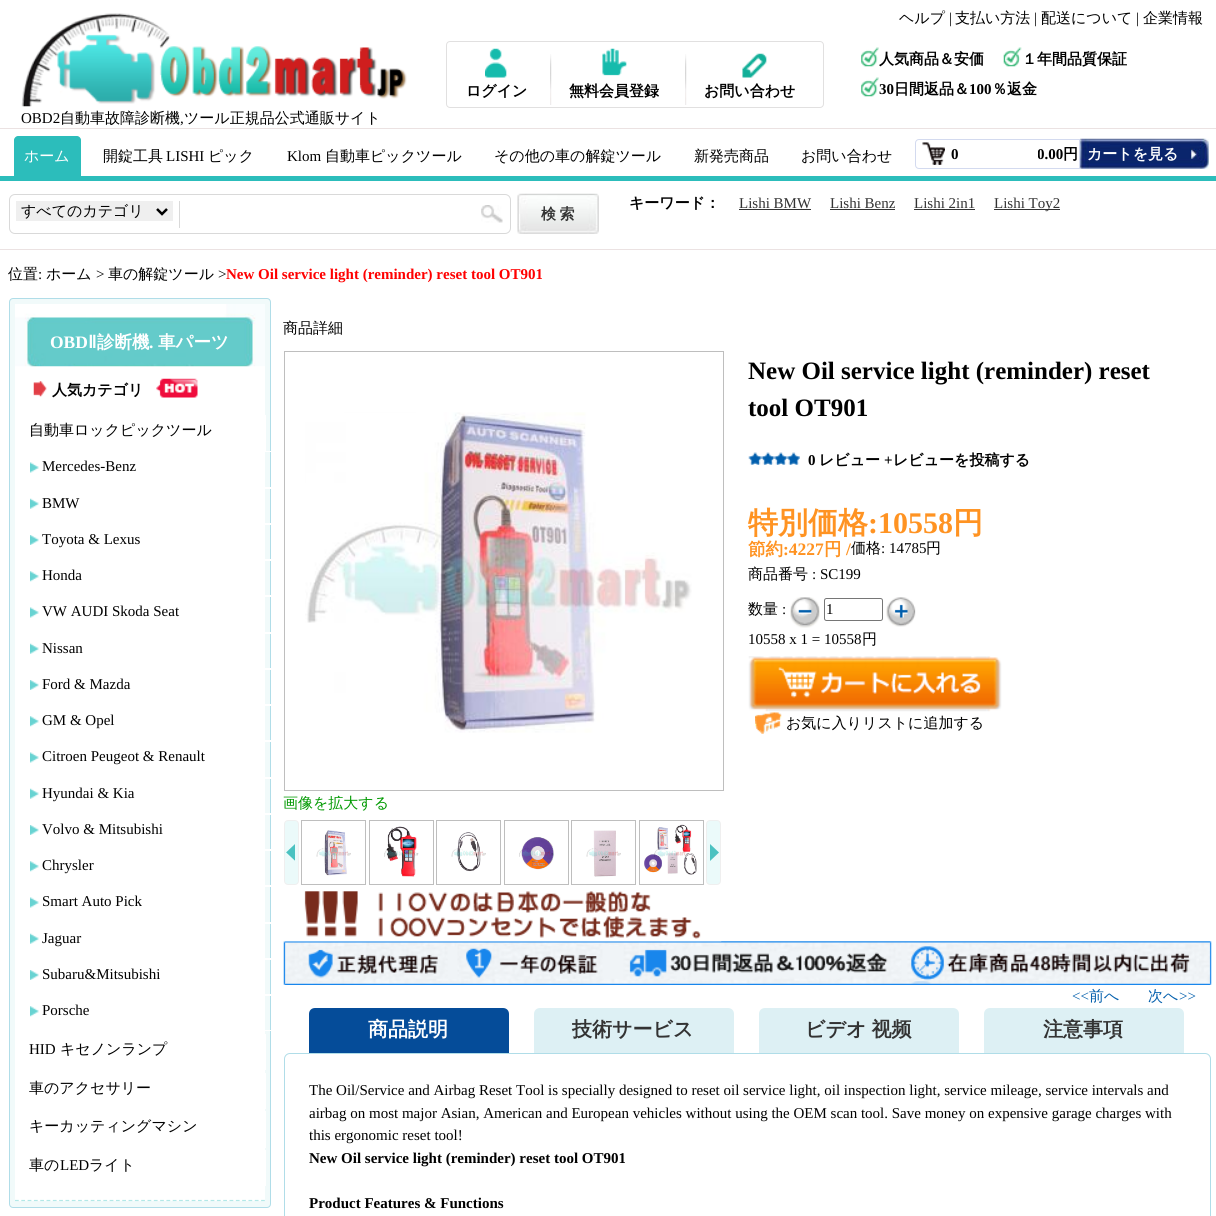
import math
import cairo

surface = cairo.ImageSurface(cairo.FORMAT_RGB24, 1216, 1216)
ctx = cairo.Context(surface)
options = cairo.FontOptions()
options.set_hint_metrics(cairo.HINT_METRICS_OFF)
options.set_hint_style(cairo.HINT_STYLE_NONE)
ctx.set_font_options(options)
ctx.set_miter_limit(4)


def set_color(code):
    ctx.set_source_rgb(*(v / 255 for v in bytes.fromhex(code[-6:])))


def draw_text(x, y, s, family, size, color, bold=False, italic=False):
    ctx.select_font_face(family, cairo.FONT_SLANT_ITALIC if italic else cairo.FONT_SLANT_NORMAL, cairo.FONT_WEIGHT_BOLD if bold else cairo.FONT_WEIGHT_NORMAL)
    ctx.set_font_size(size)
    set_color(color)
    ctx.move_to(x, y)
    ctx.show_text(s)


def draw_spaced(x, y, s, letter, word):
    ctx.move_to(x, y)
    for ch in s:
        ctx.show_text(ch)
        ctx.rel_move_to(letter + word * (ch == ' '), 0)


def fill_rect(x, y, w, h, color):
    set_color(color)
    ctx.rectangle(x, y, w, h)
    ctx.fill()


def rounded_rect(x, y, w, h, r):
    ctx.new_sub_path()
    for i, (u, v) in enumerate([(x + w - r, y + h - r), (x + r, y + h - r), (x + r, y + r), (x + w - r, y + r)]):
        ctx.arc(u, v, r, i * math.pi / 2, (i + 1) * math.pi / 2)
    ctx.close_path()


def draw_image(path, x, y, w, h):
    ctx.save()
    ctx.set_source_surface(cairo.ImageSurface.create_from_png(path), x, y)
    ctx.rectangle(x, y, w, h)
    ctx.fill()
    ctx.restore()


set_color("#ffffff")
ctx.paint()
fill_rect(0, 128, 1216, 1, "#ebe2e2")
draw_text(899, 23, "ヘルプ", "WenQuanYi Zen Hei Medium", 15, "#000000")
draw_text(949, 23, "|", "Liberation Serif", 15, "#000000")
draw_text(955, 23, "支払い方法", "WenQuanYi Zen Hei Medium", 15, "#000000")
draw_text(1034, 23, "|", "Liberation Serif", 15, "#000000")
draw_text(1041, 23, "配送について", "WenQuanYi Zen Hei Medium", 15, "#000000")
draw_text(1136, 23, "|", "Liberation Serif", 15, "#000000")
draw_text(1143, 23, "企業情報", "WenQuanYi Zen Hei Medium", 15, "#000000")
rounded_rect(446.5, 41.5, 377, 66, 3.5)
set_color("#e1e0e0")
ctx.set_line_width(1)
ctx.stroke()
draw_image("assets/img1.png", 485, 48, 22, 30)
draw_text(466, 96, "ログイン", "WenQuanYi Zen Hei", 15, "#000000", bold=True)
draw_image("assets/img2.png", 550, 54, 2, 51)
draw_image("assets/img3.png", 602, 48, 25, 28)
draw_text(569, 96, "無料会員登録", "WenQuanYi Zen Hei", 15, "#000000", bold=True)
draw_image("assets/img2.png", 685, 54, 2, 51)
draw_image("assets/img4.png", 742, 53, 25, 25)
draw_text(704, 96, "お問い合わせ", "WenQuanYi Zen Hei", 15, "#000000", bold=True)
draw_image("assets/img5.png", 861, 47, 18, 20)
draw_text(879, 64, "人気商品＆安価", "WenQuanYi Zen Hei", 15, "#000000", bold=True)
draw_image("assets/img6.png", 1003, 47, 19, 20)
draw_text(1022, 64, "１年間品質保証", "WenQuanYi Zen Hei", 15, "#000000", bold=True)
draw_image("assets/img5.png", 861, 77, 18, 20)
draw_text(879, 94, "30", "Liberation Serif", 15, "#000000", bold=True)
draw_text(894, 94, "日間返品＆", "WenQuanYi Zen Hei", 15, "#000000", bold=True)
draw_text(969, 94, "100", "Liberation Serif", 15, "#000000", bold=True)
draw_text(992, 94, "％返金", "WenQuanYi Zen Hei", 15, "#000000", bold=True)
draw_image("assets/img7.png", 21, 13, 386, 94)
draw_text(21, 123, "OBD2", "Liberation Serif", 15, "#000000")
draw_text(60, 123, "自動車故障診断機", "WenQuanYi Zen Hei Medium", 15, "#000000")
draw_text(180, 123, ",", "Liberation Serif", 15, "#000000")
draw_text(184, 123, "ツール正規品公式通販サイト", "WenQuanYi Zen Hei Medium", 15, "#000000")
fill_rect(0, 176, 1216, 5, "#2cbdbb")
ctx.new_path()
ctx.move_to(18, 136)
ctx.line_to(77, 136)
ctx.curve_to(79, 136, 81, 138, 81, 140)
ctx.line_to(81, 176)
ctx.line_to(14, 176)
ctx.line_to(14, 140)
ctx.curve_to(14, 138, 16, 136, 18, 136)
ctx.close_path()
ctx.fill()
draw_text(24, 161, "ホーム", "WenQuanYi Zen Hei Medium", 15, "#ffffff")
draw_text(103, 161, "開錠工具", "WenQuanYi Zen Hei Medium", 15, "#000000")
draw_text(166, 161, "LISHI", "Liberation Serif", 15, "#000000")
draw_text(208, 161, "ピック", "WenQuanYi Zen Hei Medium", 15, "#000000")
draw_text(287, 161, "Klom", "Liberation Serif", 15, "#000000")
draw_text(325, 161, "自動車ピックツール", "WenQuanYi Zen Hei Medium", 15, "#000000")
draw_text(494, 161, "その他の車の解錠ツール", "WenQuanYi Zen Hei Medium", 15, "#000000")
draw_text(694, 161, "新発売商品", "WenQuanYi Zen Hei Medium", 15, "#000000")
draw_text(801, 161, "お問い合わせ", "WenQuanYi Zen Hei Medium", 15, "#000000")
ctx.new_path()
ctx.move_to(919, 139.5)
ctx.line_to(1079.5, 139.5)
ctx.line_to(1079.5, 168.5)
ctx.line_to(919, 168.5)
ctx.curve_to(917, 168.5, 915.5, 167, 915.5, 165)
ctx.line_to(915.5, 143)
ctx.curve_to(915.5, 141, 917, 139.5, 919, 139.5)
ctx.close_path()
set_color("#d3daef")
ctx.stroke()
draw_image("assets/img8.png", 922, 142, 23, 23)
draw_text(951, 159, "0", "Liberation Serif", 15, "#000000", bold=True)
ctx.save()
ctx.rectangle(1038, 140, 41, 28)
ctx.clip()
draw_text(1037, 159, "0.00", "Liberation Serif", 15, "#000000", bold=True)
ctx.restore()
draw_text(1063, 159, "円", "WenQuanYi Zen Hei", 15, "#000000", bold=True)
draw_image("assets/img9.png", 1080, 138, 129, 31)
draw_text(1087, 159, "カートを見る", "WenQuanYi Zen Hei", 15, "#ffffff", bold=True)
fill_rect(0, 249, 1216, 1, "#ebe2e2")
rounded_rect(9.5, 194.5, 501, 39, 5.5)
set_color("#d9d9d9")
ctx.stroke()
fill_rect(16, 201, 157, 20, "#efefef")
ctx.new_path()
ctx.move_to(157, 209)
ctx.line_to(162, 214)
ctx.line_to(167, 209)
set_color("#000000")
ctx.set_line_width(2.5)
ctx.stroke()
draw_text(21, 216, "すべてのカテゴリ", "WenQuanYi Zen Hei Medium", 15, "#000000")
fill_rect(179, 201, 1, 27, "#d9d9d9")
draw_image("assets/img10.png", 481, 205, 22, 18)
draw_image("assets/img11.png", 517, 193, 82, 41)
ctx.select_font_face("WenQuanYi Zen Hei", cairo.FONT_SLANT_NORMAL, cairo.FONT_WEIGHT_BOLD)
set_color("#333333")
draw_spaced(541, 219, "検 索", 0, -1)
draw_text(629, 208, "キーワード：", "WenQuanYi Zen Hei", 15, "#000000", bold=True)
draw_text(739, 208, "Lishi BMW", "Liberation Serif", 15, "#333333")
fill_rect(739, 209, 72, 1, "#333333")
draw_text(830, 208, "Lishi Benz", "Liberation Serif", 15, "#333333")
fill_rect(830, 209, 65, 1, "#333333")
draw_text(914, 208, "Lishi 2in1", "Liberation Serif", 15, "#333333")
fill_rect(914, 209, 61, 1, "#333333")
fill_rect(994, 209, 66, 1, "#333333")
draw_text(994, 208, "Lishi Toy2", "Liberation Serif", 15, "#333333")
draw_text(8, 279, "位置", "WenQuanYi Zen Hei Medium", 15, "#000000")
draw_text(38, 279, ":", "Liberation Serif", 15, "#000000")
draw_text(46, 279, "ホーム", "WenQuanYi Zen Hei Medium", 15, "#000000")
draw_text(96, 279, ">", "Liberation Serif", 15, "#000000")
draw_text(108, 279, "車の解錠ツール", "WenQuanYi Zen Hei Medium", 15, "#000000")
draw_text(218, 279, ">", "Liberation Serif", 15, "#000000")
draw_text(226, 279, "New Oil service light (reminder) reset tool OT901", "Liberation Serif", 15, "#ff0000", bold=True)
set_color("#f1fafa")
rounded_rect(9.5, 298.5, 261, 909, 3.5)
ctx.fill_preserve()
set_color("#b0dde8")
ctx.set_line_width(1)
ctx.stroke()
fill_rect(15, 366, 250, 835, "#ffffff")
draw_image("assets/img12.png", 15, 304, 250, 63)
draw_text(50, 348, "OBD", "Liberation Serif", 17.5, "#ffffff", bold=True)
draw_text(88, 348, "Ⅱ", "DejaVu Sans", 17.5, "#ffffff", bold=True)
draw_text(97, 348, "診断機", "WenQuanYi Zen Hei", 17.5, "#ffffff", bold=True)
draw_text(149, 348, ".", "Liberation Serif", 17.5, "#ffffff", bold=True)
draw_text(158, 348, "車パーツ", "WenQuanYi Zen Hei", 17.5, "#ffffff", bold=True)
ctx.new_path()
ctx.move_to(15, 1200.5)
ctx.line_to(265, 1200.5)
set_color("#b3e8e7")
ctx.set_line_width(1.2)
ctx.set_dash([3.75, 2.56])
ctx.stroke()
draw_image("assets/img13.png", 33, 381, 14, 16)
draw_text(52, 395, "人気カテゴリ", "WenQuanYi Zen Hei", 15, "#000000", bold=True)
draw_image("assets/img14.png", 156, 378, 42, 20)
ctx.rectangle(16.5, 415.5, 249, 35)
set_color("#ffffff")
ctx.set_line_width(1)
ctx.set_dash([])
ctx.stroke()
draw_text(29, 435, "自動車ロックピックツール", "WenQuanYi Zen Hei Medium", 15, "#000000")
ctx.rectangle(29.5, 451.5, 249, 36)
set_color("#ffffff")
ctx.stroke()
draw_image("assets/img15.png", 30, 462, 9, 11)
draw_text(42, 471, "Mercedes-Benz", "Liberation Serif", 15, "#000000")
ctx.rectangle(29.5, 488.5, 249, 35)
set_color("#ffffff")
ctx.stroke()
draw_image("assets/img16.png", 30, 498, 9, 11)
draw_text(42, 508, "BMW", "Liberation Serif", 15, "#000000")
ctx.rectangle(29.5, 524.5, 249, 35)
set_color("#ffffff")
ctx.stroke()
draw_image("assets/img17.png", 30, 535, 9, 10)
draw_text(42, 544, "Toyota & Lexus", "Liberation Serif", 15, "#000000")
ctx.rectangle(29.5, 560.5, 249, 35)
set_color("#ffffff")
ctx.stroke()
draw_image("assets/img18.png", 30, 571, 9, 11)
draw_text(42, 580, "Honda", "Liberation Serif", 15, "#000000")
ctx.rectangle(29.5, 596.5, 249, 36)
set_color("#ffffff")
ctx.stroke()
draw_image("assets/img15.png", 30, 607, 9, 11)
draw_text(42, 616, "VW AUDI Skoda Seat", "Liberation Serif", 15, "#000000")
ctx.rectangle(29.5, 633.5, 249, 35)
set_color("#ffffff")
ctx.stroke()
draw_image("assets/img16.png", 30, 643, 9, 11)
draw_text(42, 653, "Nissan", "Liberation Serif", 15, "#000000")
ctx.rectangle(29.5, 669.5, 249, 35)
set_color("#ffffff")
ctx.stroke()
draw_image("assets/img17.png", 30, 680, 9, 10)
draw_text(42, 689, "Ford & Mazda", "Liberation Serif", 15, "#000000")
ctx.rectangle(29.5, 705.5, 249, 35)
set_color("#ffffff")
ctx.stroke()
draw_image("assets/img18.png", 30, 716, 9, 11)
draw_text(42, 725, "GM & Opel", "Liberation Serif", 15, "#000000")
ctx.rectangle(29.5, 741.5, 249, 36)
set_color("#ffffff")
ctx.stroke()
draw_image("assets/img15.png", 30, 752, 9, 11)
draw_text(42, 761, "Citroen Peugeot & Renault", "Liberation Serif", 15, "#000000")
ctx.rectangle(29.5, 778.5, 249, 35)
set_color("#ffffff")
ctx.stroke()
draw_image("assets/img16.png", 30, 788, 9, 11)
draw_text(42, 798, "Hyundai & Kia", "Liberation Serif", 15, "#000000")
ctx.rectangle(29.5, 814.5, 249, 35)
set_color("#ffffff")
ctx.stroke()
draw_image("assets/img17.png", 30, 825, 9, 10)
draw_text(42, 834, "Volvo & Mitsubishi", "Liberation Serif", 15, "#000000")
ctx.rectangle(29.5, 850.5, 249, 35)
set_color("#ffffff")
ctx.stroke()
draw_image("assets/img18.png", 30, 861, 9, 11)
draw_text(42, 870, "Chrysler", "Liberation Serif", 15, "#000000")
ctx.rectangle(29.5, 886.5, 249, 36)
set_color("#ffffff")
ctx.stroke()
draw_image("assets/img15.png", 30, 897, 9, 11)
draw_text(42, 906, "Smart Auto Pick", "Liberation Serif", 15, "#000000")
ctx.rectangle(29.5, 923.5, 249, 35)
set_color("#ffffff")
ctx.stroke()
draw_image("assets/img16.png", 30, 933, 9, 11)
draw_text(42, 943, "Jaguar", "Liberation Serif", 15, "#000000")
ctx.rectangle(29.5, 959.5, 249, 35)
set_color("#ffffff")
ctx.stroke()
draw_image("assets/img17.png", 30, 970, 9, 10)
draw_text(42, 979, "Subaru&Mitsubishi", "Liberation Serif", 15, "#000000")
ctx.rectangle(29.5, 995.5, 249, 35)
set_color("#ffffff")
ctx.stroke()
draw_image("assets/img18.png", 30, 1006, 9, 11)
draw_text(42, 1015, "Porsche", "Liberation Serif", 15, "#000000")
ctx.rectangle(16.5, 1034.5, 249, 35)
set_color("#ffffff")
ctx.stroke()
draw_text(29, 1054, "HID", "Liberation Serif", 15, "#000000")
draw_text(60, 1054, "キセノンランプ", "WenQuanYi Zen Hei Medium", 15, "#000000")
ctx.rectangle(16.5, 1073.5, 249, 35)
set_color("#ffffff")
ctx.stroke()
draw_text(29, 1093, "車のアクセサリー", "WenQuanYi Zen Hei Medium", 15, "#000000")
ctx.rectangle(16.5, 1111.5, 249, 36)
set_color("#ffffff")
ctx.stroke()
draw_text(29, 1131, "キーカッティングマシン", "WenQuanYi Zen Hei Medium", 15, "#000000")
ctx.rectangle(16.5, 1150.5, 249, 35)
set_color("#ffffff")
ctx.stroke()
draw_text(29, 1170, "車の", "WenQuanYi Zen Hei Medium", 15, "#000000")
draw_text(60, 1170, "LED", "Liberation Serif", 15, "#000000")
draw_text(89, 1170, "ライト", "WenQuanYi Zen Hei Medium", 15, "#000000")
draw_text(283, 333, "商品詳細", "WenQuanYi Zen Hei Medium", 15, "#000000")
draw_text(748, 379, "New Oil service light (reminder) reset", "Liberation Serif", 25, "#000000", bold=True)
draw_text(748, 416, "tool OT901", "Liberation Serif", 25, "#000000", bold=True)
draw_image("assets/img19.png", 748, 452, 52, 13)
draw_text(808, 465, "0", "Liberation Serif", 15, "#000000", bold=True)
draw_text(819, 465, "レビュー", "WenQuanYi Zen Hei", 15, "#000000", bold=True)
draw_text(884, 465, "+", "Liberation Serif", 15, "#000000", bold=True)
draw_text(893, 465, "レビューを投稿する", "WenQuanYi Zen Hei", 15, "#000000", bold=True)
draw_text(748, 533, "特別価格", "WenQuanYi Zen Hei", 30, "#ff9322", bold=True)
draw_text(868, 533, ":10558", "Liberation Serif", 30, "#ff9322", bold=True)
draw_text(953, 533, "円", "WenQuanYi Zen Hei", 30, "#ff9322", bold=True)
draw_text(748, 555, "節約", "WenQuanYi Zen Hei", 17.5, "#ff9322", bold=True)
draw_text(783, 555, ":4227", "Liberation Serif", 17.5, "#ff9322", bold=True)
draw_text(824, 555, "円", "WenQuanYi Zen Hei", 17.5, "#ff9322", bold=True)
draw_text(846, 555, "/", "Liberation Serif", 17.5, "#ff9322", bold=True)
draw_text(851, 553, "価格", "WenQuanYi Zen Hei Medium", 15, "#000000")
draw_text(881, 553, ": 14785", "Liberation Serif", 15, "#000000")
draw_text(926, 553, "円", "WenQuanYi Zen Hei Medium", 15, "#000000")
draw_text(748, 579, "商品番号", "WenQuanYi Zen Hei Medium", 15, "#000000")
draw_text(812, 579, ": SC199", "Liberation Serif", 15, "#000000")
draw_text(748, 614, "数量", "WenQuanYi Zen Hei Medium", 15, "#000000")
draw_text(782, 614, ":", "Liberation Serif", 15, "#000000")
draw_image("assets/img20.png", 790, 597, 30, 31)
rounded_rect(824.5, 598.5, 58, 22, 2)
set_color("#767676")
ctx.stroke()
draw_text(826, 614, "1", "Liberation Serif", 15, "#000000")
draw_image("assets/img21.png", 886, 597, 30, 30)
draw_text(748, 644, "10558 x 1 = 10558", "Liberation Serif", 15, "#000000")
draw_text(862, 644, "円", "WenQuanYi Zen Hei Medium", 15, "#000000")
draw_image("assets/img22.png", 748, 656, 254, 56)
draw_image("assets/img23.png", 755, 712, 27, 22)
draw_text(786, 728, "お気に入りリストに追加する", "WenQuanYi Zen Hei Medium", 15, "#000000")
ctx.rectangle(284.5, 351.5, 439, 439)
set_color("#bebebe")
ctx.stroke()
draw_image("assets/img24.png", 305, 412, 387, 321)
draw_text(283, 808, "画像を拡大する", "WenQuanYi Zen Hei Medium", 15, "#009900")
set_color("#ebfafa")
rounded_rect(284.5, 820.5, 14, 64, 3.5)
ctx.fill_preserve()
set_color("#efefef")
ctx.stroke()
set_color("#4bc2c1")
ctx.new_path()
ctx.move_to(295, 844)
ctx.line_to(295, 861)
ctx.line_to(286, 852.5)
ctx.close_path()
ctx.fill()
set_color("#ebfafa")
ctx.new_path()
ctx.move_to(295, 861)
ctx.line_to(285, 861)
ctx.line_to(285, 853.5)
ctx.line_to(286, 852.5)
ctx.close_path()
ctx.fill()
ctx.rectangle(301.5, 820.5, 64, 64)
set_color("#bebebe")
ctx.stroke()
draw_image("assets/img25.png", 316, 830, 35, 46)
ctx.rectangle(369.5, 820.5, 64, 64)
ctx.stroke()
draw_image("assets/img26.png", 384, 826, 35, 51)
ctx.rectangle(436.5, 820.5, 64, 64)
ctx.stroke()
draw_image("assets/img27.png", 451, 832, 35, 40)
ctx.rectangle(504.5, 820.5, 64, 64)
ctx.stroke()
draw_image("assets/img28.png", 519, 837, 35, 33)
ctx.rectangle(571.5, 820.5, 64, 64)
ctx.stroke()
draw_image("assets/img29.png", 586, 830, 35, 47)
ctx.rectangle(639.5, 820.5, 64, 64)
ctx.stroke()
draw_image("assets/img30.png", 644, 824, 53, 51)
set_color("#ebfafa")
rounded_rect(706.5, 820.5, 14, 64, 3.5)
ctx.fill_preserve()
set_color("#efefef")
ctx.stroke()
set_color("#4bc2c1")
ctx.new_path()
ctx.move_to(710, 861)
ctx.line_to(710, 844)
ctx.line_to(719, 852.5)
ctx.close_path()
ctx.fill()
draw_image("assets/img32.png", 283, 941, 929, 44)
draw_image("assets/img31.png", 284, 891, 438, 51)
draw_text(1072, 1001, "<<", "Liberation Serif", 15, "#015eac")
draw_text(1089, 1001, "前へ", "WenQuanYi Zen Hei Medium", 15, "#015eac")
draw_text(1148, 1001, "次へ", "WenQuanYi Zen Hei Medium", 15, "#015eac")
draw_text(1179, 1001, ">>", "Liberation Serif", 15, "#015eac")
set_color("#054c99")
ctx.new_path()
ctx.move_to(315, 1008)
ctx.line_to(503, 1008)
ctx.curve_to(506.5, 1008, 509, 1010.5, 509, 1014)
ctx.line_to(509, 1053)
ctx.line_to(309, 1053)
ctx.line_to(309, 1014)
ctx.curve_to(309, 1010.5, 311.5, 1008, 315, 1008)
ctx.close_path()
ctx.fill()
draw_text(368, 1036, "商品説明", "WenQuanYi Zen Hei", 20, "#ffffff", bold=True)
rounded_rect(284.5, 1053.5, 926, 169, 5.5)
set_color("#b0dde8")
ctx.stroke()
draw_text(309, 1095, "The Oil/Service and Airbag Reset Tool is specially designed to reset oil service light, oil inspection light, service mileage, service intervals and", "Liberation Serif", 15, "#000000")
draw_text(309, 1118, "airbag on most major Asian, American and European vehicles without using the OEM scan tool. Save money on expensive garage charges with", "Liberation Serif", 15, "#000000")
draw_text(309, 1140, "this ergonomic reset tool!", "Liberation Serif", 15, "#000000")
draw_text(309, 1163, "New Oil service light (reminder) reset tool OT901", "Liberation Serif", 15, "#000000", bold=True)
draw_text(309, 1208, "Product Features & Functions", "Liberation Serif", 15, "#000000", bold=True)
set_color("#ddf0f4")
ctx.new_path()
ctx.move_to(540, 1008)
ctx.line_to(728, 1008)
ctx.curve_to(731.5, 1008, 734, 1010.5, 734, 1014)
ctx.line_to(734, 1053)
ctx.line_to(534, 1053)
ctx.line_to(534, 1014)
ctx.curve_to(534, 1010.5, 536.5, 1008, 540, 1008)
ctx.close_path()
ctx.fill()
draw_text(572, 1036, "技術サービス", "WenQuanYi Zen Hei", 20, "#333333", bold=True)
set_color("#ddf0f4")
ctx.new_path()
ctx.move_to(765, 1008)
ctx.line_to(953, 1008)
ctx.curve_to(956.5, 1008, 959, 1010.5, 959, 1014)
ctx.line_to(959, 1053)
ctx.line_to(759, 1053)
ctx.line_to(759, 1014)
ctx.curve_to(759, 1010.5, 761.5, 1008, 765, 1008)
ctx.close_path()
ctx.fill()
set_color("#333333")
draw_spaced(805, 1036, "ビデオ 视频", 0, -1)
set_color("#ddf0f4")
ctx.new_path()
ctx.move_to(990, 1008)
ctx.line_to(1178, 1008)
ctx.curve_to(1181.5, 1008, 1184, 1010.5, 1184, 1014)
ctx.line_to(1184, 1053)
ctx.line_to(984, 1053)
ctx.line_to(984, 1014)
ctx.curve_to(984, 1010.5, 986.5, 1008, 990, 1008)
ctx.close_path()
ctx.fill()
draw_text(1043, 1036, "注意事項", "WenQuanYi Zen Hei", 20, "#333333", bold=True)
surface.write_to_png("output.png")
